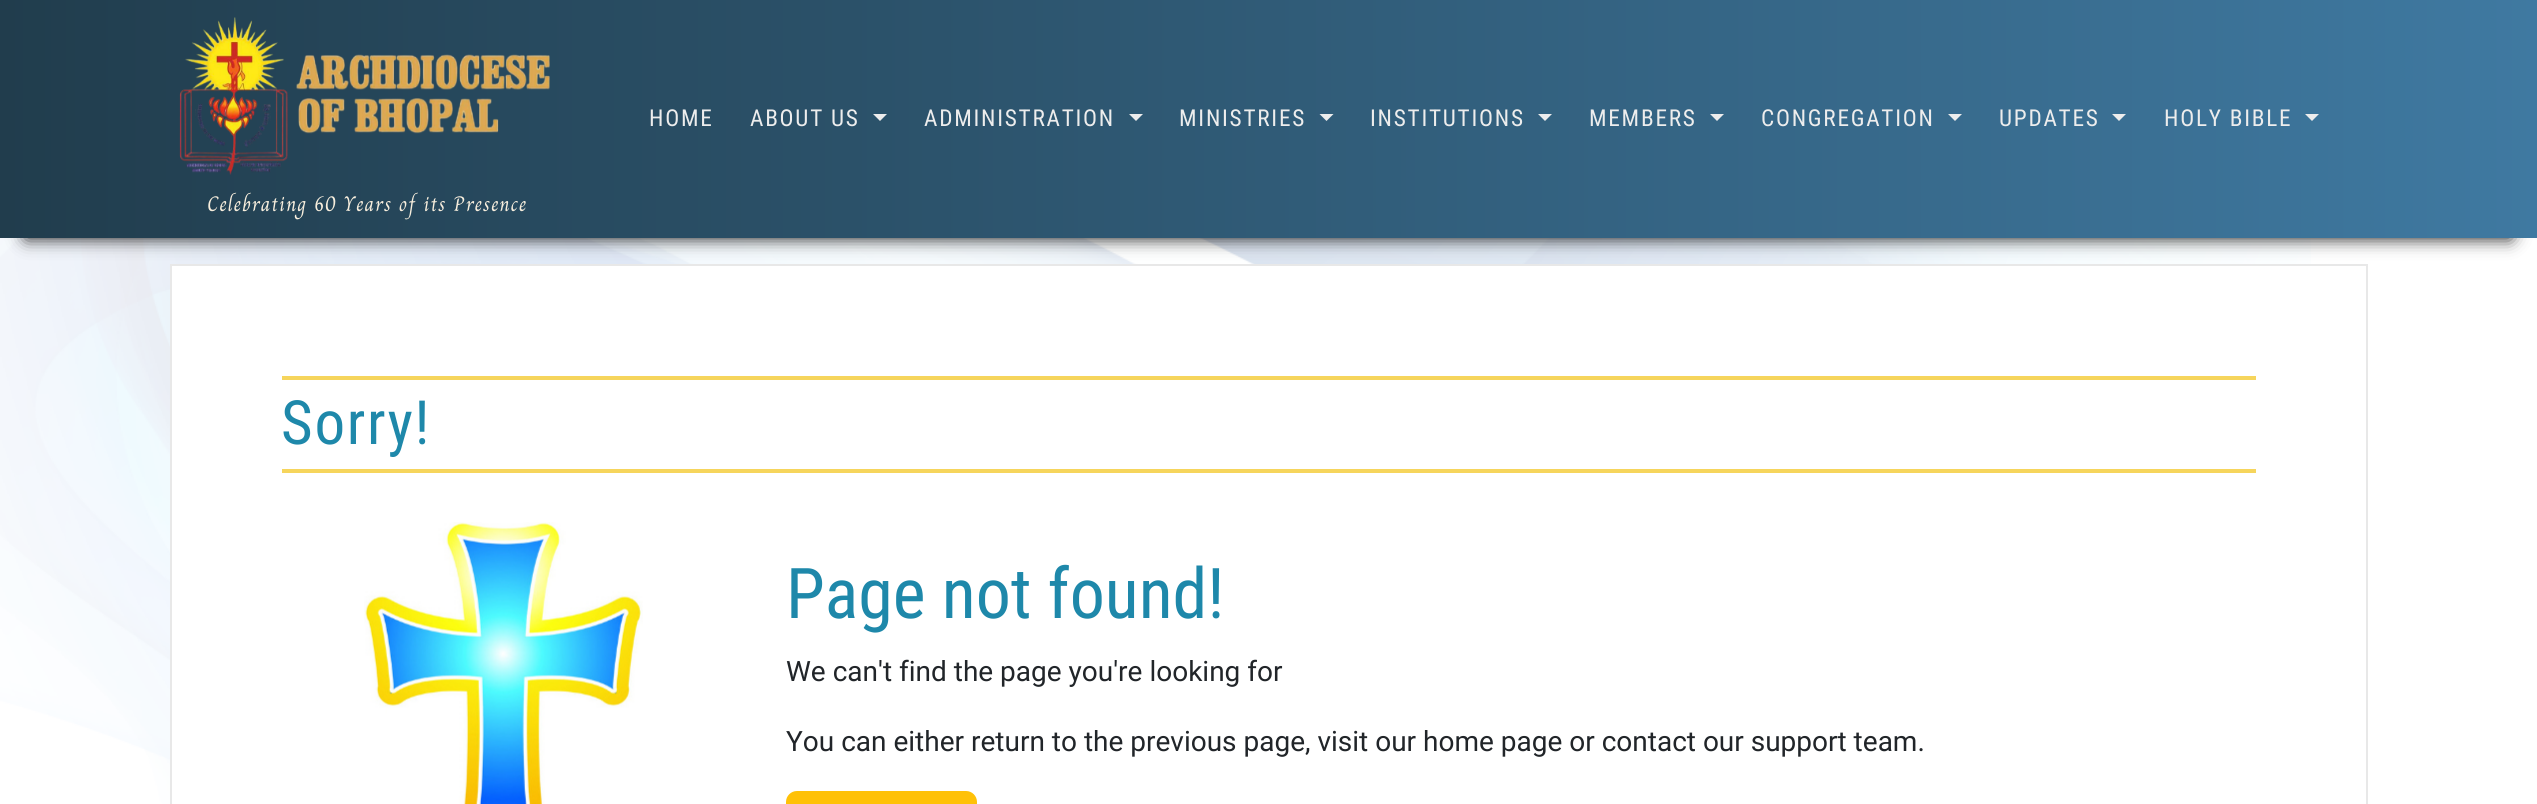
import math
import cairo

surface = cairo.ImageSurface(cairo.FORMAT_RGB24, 2537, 804)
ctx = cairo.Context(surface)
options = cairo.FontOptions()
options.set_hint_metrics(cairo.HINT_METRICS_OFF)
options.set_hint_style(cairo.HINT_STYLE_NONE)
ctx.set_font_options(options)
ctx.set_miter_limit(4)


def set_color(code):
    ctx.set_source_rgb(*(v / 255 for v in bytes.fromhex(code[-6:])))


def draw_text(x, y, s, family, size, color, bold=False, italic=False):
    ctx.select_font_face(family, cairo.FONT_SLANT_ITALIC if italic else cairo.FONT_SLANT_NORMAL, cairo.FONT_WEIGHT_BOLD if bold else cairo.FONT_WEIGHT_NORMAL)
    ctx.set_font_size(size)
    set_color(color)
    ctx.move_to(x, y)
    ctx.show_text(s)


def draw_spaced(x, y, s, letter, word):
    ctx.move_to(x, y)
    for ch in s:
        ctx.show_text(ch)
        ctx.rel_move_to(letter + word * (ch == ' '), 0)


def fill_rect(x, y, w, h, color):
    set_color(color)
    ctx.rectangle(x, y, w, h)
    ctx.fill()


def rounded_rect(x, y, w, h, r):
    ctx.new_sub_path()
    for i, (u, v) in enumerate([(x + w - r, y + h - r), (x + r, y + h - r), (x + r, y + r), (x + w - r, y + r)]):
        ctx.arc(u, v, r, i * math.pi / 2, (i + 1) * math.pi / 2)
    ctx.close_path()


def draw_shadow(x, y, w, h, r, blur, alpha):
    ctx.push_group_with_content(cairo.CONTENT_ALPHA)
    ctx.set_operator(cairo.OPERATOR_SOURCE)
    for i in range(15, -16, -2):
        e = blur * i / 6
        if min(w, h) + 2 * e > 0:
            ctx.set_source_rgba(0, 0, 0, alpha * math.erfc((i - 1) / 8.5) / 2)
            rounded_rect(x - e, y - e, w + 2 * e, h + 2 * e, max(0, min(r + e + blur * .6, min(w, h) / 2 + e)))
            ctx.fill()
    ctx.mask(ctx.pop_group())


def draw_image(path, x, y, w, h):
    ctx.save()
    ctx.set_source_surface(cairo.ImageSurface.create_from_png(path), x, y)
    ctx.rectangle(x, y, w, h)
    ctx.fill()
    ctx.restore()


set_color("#ffffff")
ctx.paint()
draw_image("assets/img1.png", 0, 238, 2311, 566)
fill_rect(172, 266, 2139, 538, "#ffffff")
ctx.rectangle(171, 265, 2196, 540)
set_color("#e8e8e8")
ctx.stroke()
set_color("#111111")
draw_shadow(26, 53, 2485, 185, 0, 9, 1)
gradient = cairo.LinearGradient(0, 119, 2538, 119)
gradient.add_color_stop_rgba(0, 0.129, 0.239, 0.302, 1)
gradient.add_color_stop_rgba(1, 0.247, 0.475, 0.631, 1)
ctx.set_source(gradient)
ctx.rectangle(0, 0, 2537, 238)
ctx.fill()
ctx.select_font_face("Roboto Condensed")
ctx.set_font_size(23.25)
set_color("#ededed")
draw_spaced(649, 126, "HOME", 1.75, 0)
draw_spaced(750, 126, "ABOUT US", 1.75, 0)
ctx.new_path()
ctx.move_to(873, 114)
ctx.line_to(887, 114)
ctx.line_to(880, 121)
ctx.close_path()
ctx.fill()
draw_spaced(924, 126, "ADMINISTRATION", 1.75, 0)
ctx.new_path()
ctx.move_to(1129, 114)
ctx.line_to(1143, 114)
ctx.line_to(1136, 121)
ctx.close_path()
ctx.fill()
draw_spaced(1179, 126, "MINISTRIES", 1.75, 0)
ctx.new_path()
ctx.move_to(1319.5, 114)
ctx.line_to(1333.5, 114)
ctx.line_to(1326.5, 121)
ctx.close_path()
ctx.fill()
draw_spaced(1370, 126, "INSTITUTIONS", 1.75, 0)
ctx.new_path()
ctx.move_to(1538, 114)
ctx.line_to(1552, 114)
ctx.line_to(1545, 121)
ctx.close_path()
ctx.fill()
draw_spaced(1589, 126, "MEMBERS", 1.75, 0)
ctx.new_path()
ctx.move_to(1710, 114)
ctx.line_to(1724, 114)
ctx.line_to(1717, 121)
ctx.close_path()
ctx.fill()
draw_spaced(1761, 126, "CONGREGATION", 1.75, 0)
ctx.new_path()
ctx.move_to(1948, 114)
ctx.line_to(1962, 114)
ctx.line_to(1955, 121)
ctx.close_path()
ctx.fill()
draw_spaced(1999, 126, "UPDATES", 1.75, 0)
ctx.new_path()
ctx.move_to(2112, 114)
ctx.line_to(2126, 114)
ctx.line_to(2119, 121)
ctx.close_path()
ctx.fill()
draw_spaced(2164, 126, "HOLY BIBLE", 1.75, 0)
ctx.new_path()
ctx.move_to(2305, 114)
ctx.line_to(2319, 114)
ctx.line_to(2312, 121)
ctx.close_path()
ctx.fill()
draw_image("assets/img2.png", 179, 17, 371, 158)
ctx.select_font_face("Charm")
ctx.set_font_size(21)
set_color("#f7eedd")
draw_spaced(207, 211, "Celebrating 60 Years of its Presence", 0.9, 0)
fill_rect(282, 376, 1974, 4, "#f6d55c")
fill_rect(282, 469, 1974, 4, "#f6d55c")
ctx.select_font_face("Roboto Condensed")
ctx.set_font_size(61)
set_color("#1e88aa")
draw_spaced(281, 444, "Sorry!", 1.75, 0)
draw_image("assets/img3.png", 364, 522, 279, 282)
draw_text(786, 618, "Page not found!", "Roboto Condensed", 70, "#1e88aa")
draw_text(786, 681, "We can't find the page you're looking for", "Roboto", 28, "#212529")
draw_text(786, 751, "You can either return to the previous page, visit our home page or contact our support team.", "Roboto", 28, "#212529")
set_color("#ffc107")
rounded_rect(787, 792, 189, 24, 10)
ctx.fill_preserve()
ctx.stroke()
surface.write_to_png("output.png")
